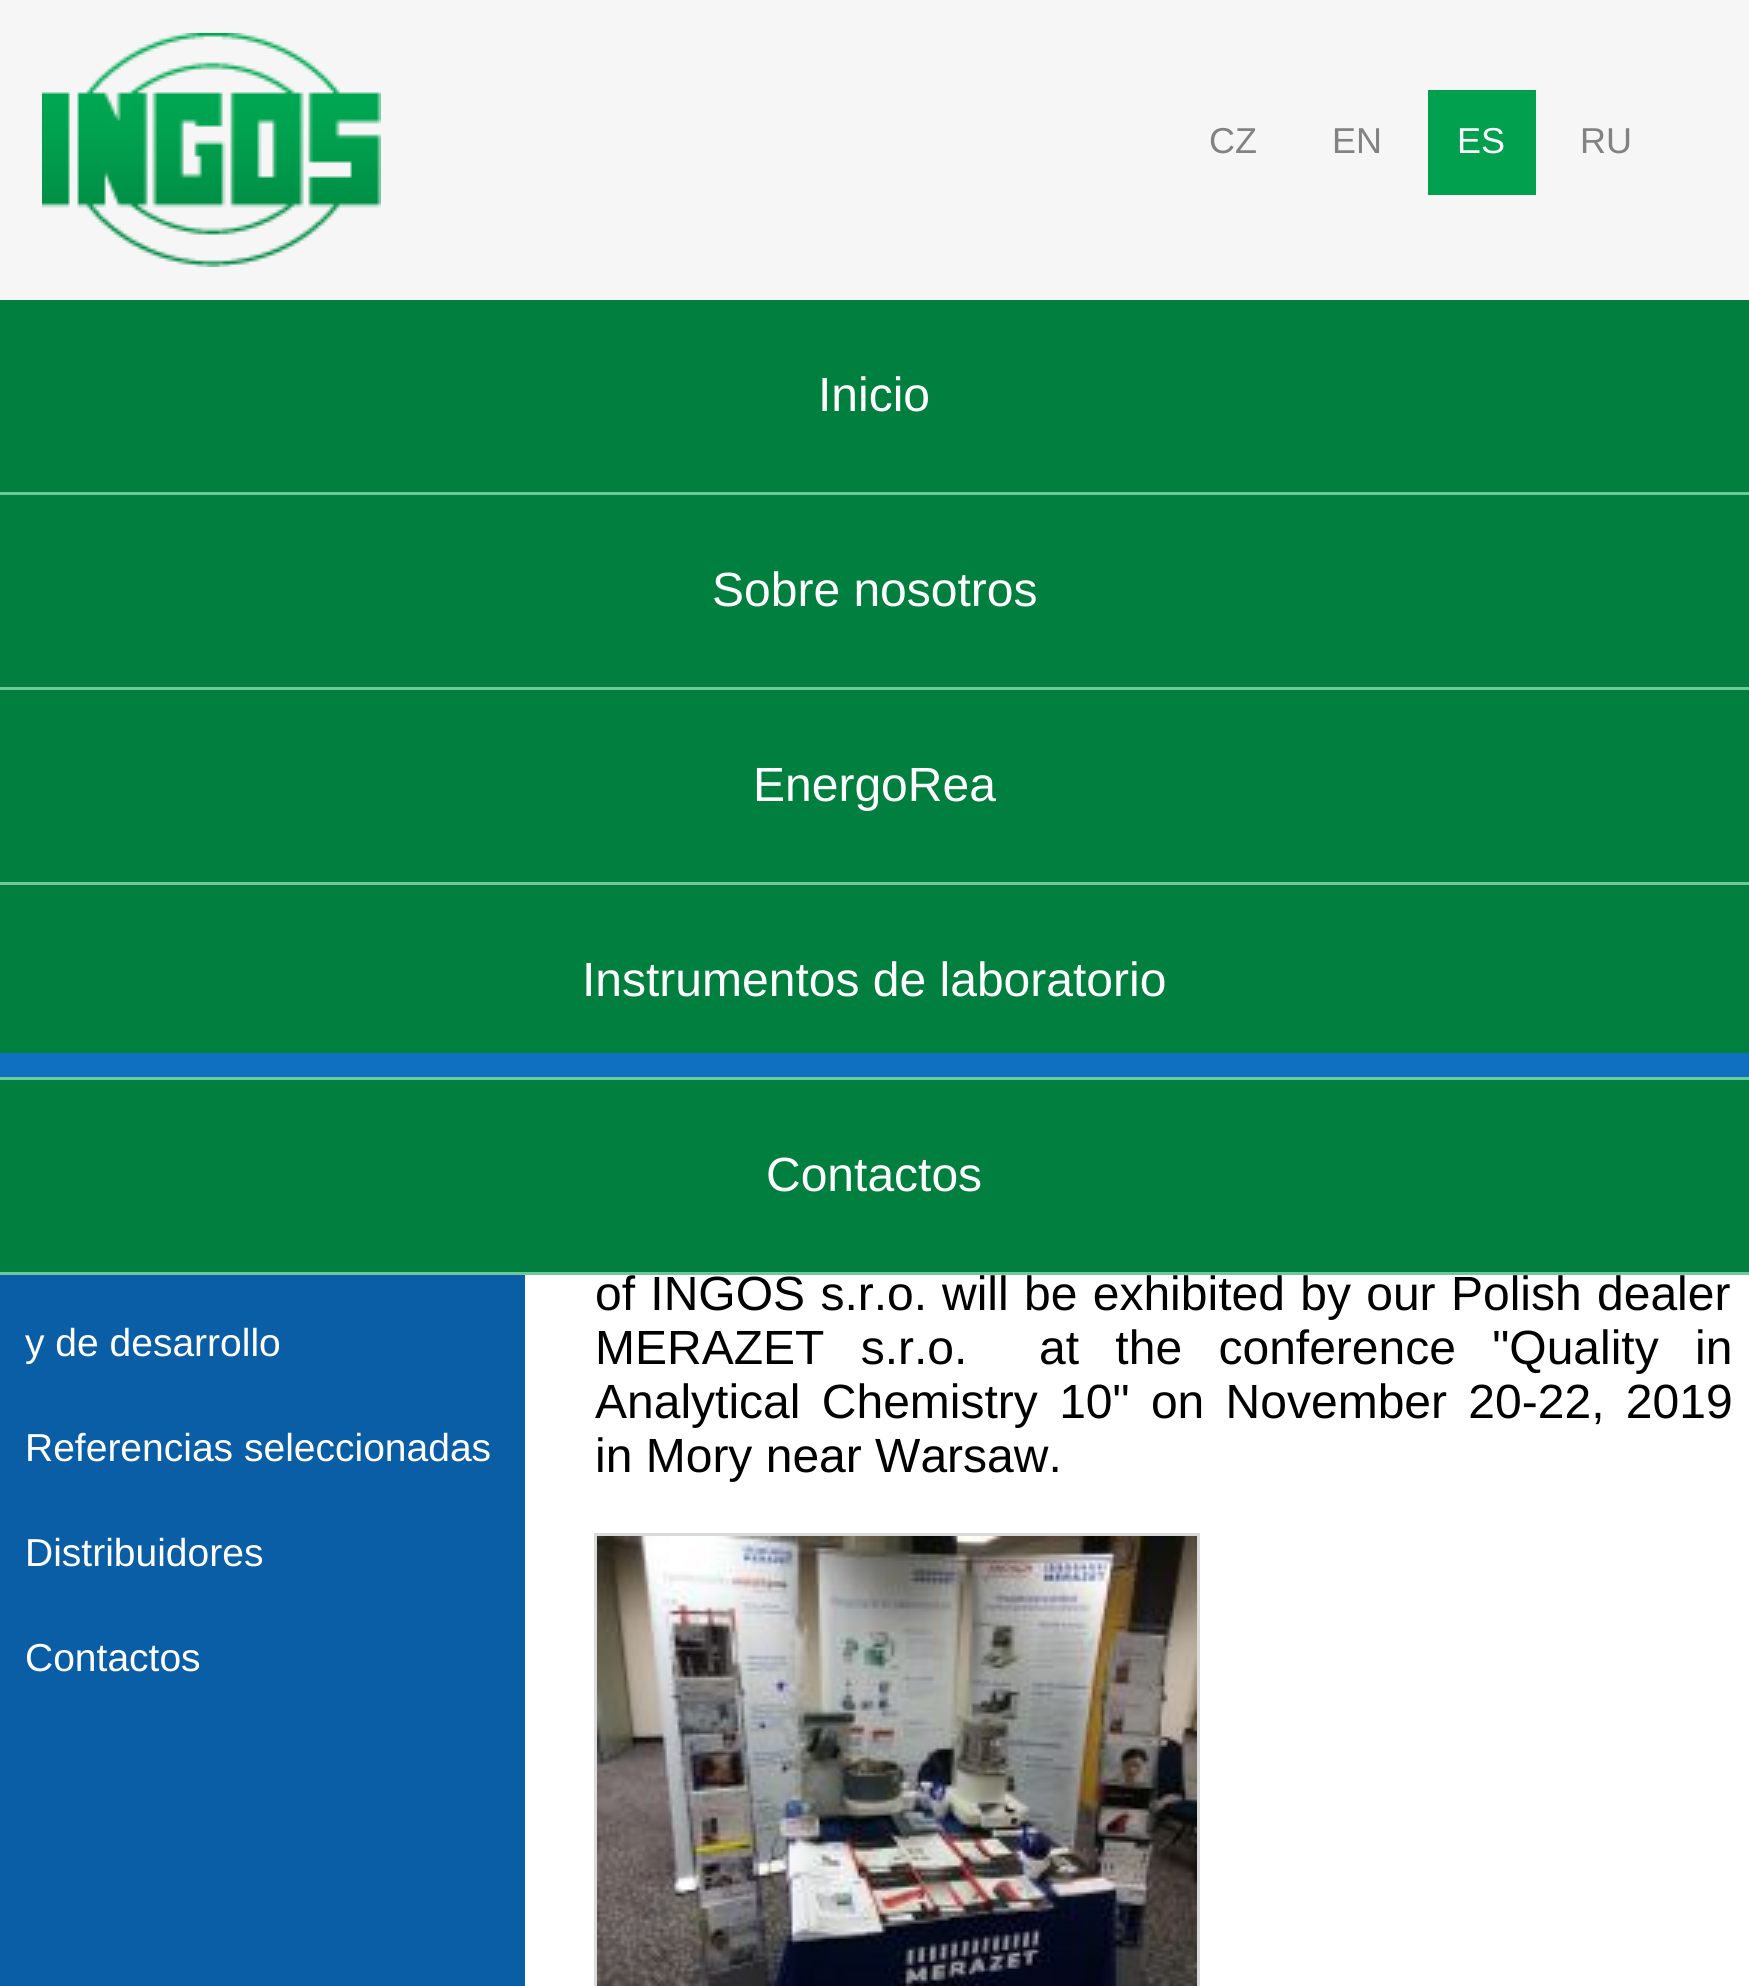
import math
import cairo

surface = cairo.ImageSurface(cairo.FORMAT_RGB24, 1749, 1986)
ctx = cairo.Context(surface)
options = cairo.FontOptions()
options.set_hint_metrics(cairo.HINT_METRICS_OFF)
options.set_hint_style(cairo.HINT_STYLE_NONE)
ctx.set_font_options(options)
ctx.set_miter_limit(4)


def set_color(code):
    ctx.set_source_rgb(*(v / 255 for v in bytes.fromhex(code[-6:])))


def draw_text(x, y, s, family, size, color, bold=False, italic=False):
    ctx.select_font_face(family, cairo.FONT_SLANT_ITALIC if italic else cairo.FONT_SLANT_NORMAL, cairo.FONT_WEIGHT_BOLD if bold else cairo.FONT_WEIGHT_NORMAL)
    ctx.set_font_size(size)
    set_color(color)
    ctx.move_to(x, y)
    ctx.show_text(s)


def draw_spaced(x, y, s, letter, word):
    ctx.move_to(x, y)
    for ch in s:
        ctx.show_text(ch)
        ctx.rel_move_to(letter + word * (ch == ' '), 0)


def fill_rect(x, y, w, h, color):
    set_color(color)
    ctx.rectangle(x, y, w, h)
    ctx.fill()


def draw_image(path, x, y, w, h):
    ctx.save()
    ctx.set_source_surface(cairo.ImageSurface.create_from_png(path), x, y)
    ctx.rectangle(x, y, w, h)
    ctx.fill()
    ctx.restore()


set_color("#f6f6f6")
ctx.paint()
draw_image("assets/img1.png", 42, 33, 339, 234)
draw_text(1209, 153, "CZ", "Liberation Sans", 36, "#828282")
draw_text(1332, 153, "EN", "Liberation Sans", 36, "#828282")
fill_rect(1428, 90, 108, 105, "#00a04e")
draw_text(1457, 153, "ES", "Liberation Sans", 36, "#ffffff")
draw_text(1580, 153, "RU", "Liberation Sans", 36, "#828282")
fill_rect(0, 492, 1749, 3, "#6ec99a")
fill_rect(0, 300, 1749, 192, "#007f3e")
draw_text(818, 411, "Inicio", "Liberation Sans", 48, "#ffffff")
fill_rect(0, 687, 1749, 3, "#6ec99a")
fill_rect(0, 495, 1749, 192, "#007f3e")
draw_text(712, 606, "Sobre nosotros", "Liberation Sans", 48, "#ffffff")
fill_rect(0, 882, 1749, 3, "#6ec99a")
fill_rect(0, 690, 1749, 192, "#007f3e")
draw_text(753, 801, "EnergoRea", "Liberation Sans", 48, "#ffffff")
fill_rect(0, 1077, 1749, 3, "#6ec99a")
fill_rect(0, 885, 1749, 168, "#007f3e")
fill_rect(0, 1053, 1749, 24, "#0f70c1")
draw_text(582, 996, "Instrumentos de laboratorio", "Liberation Sans", 48, "#ffffff")
fill_rect(0, 1272, 1749, 3, "#6ec99a")
fill_rect(0, 1080, 1749, 192, "#007f3e")
draw_text(766, 1191, "Contactos", "Liberation Sans", 48, "#ffffff")
fill_rect(525, 1275, 1224, 711, "#ffffff")
fill_rect(0, 1275, 525, 711, "#0a5ea5")
draw_text(25, 1356, "y de desarrollo", "Liberation Sans", 39, "#ffffff")
draw_text(25, 1461, "Referencias seleccionadas", "Liberation Sans", 39, "#ffffff")
draw_text(25, 1566, "Distribuidores", "Liberation Sans", 39, "#ffffff")
draw_text(25, 1671, "Contactos", "Liberation Sans", 39, "#ffffff")
ctx.set_font_size(48)
set_color("#000000")
draw_spaced(595, 1310, "of INGOS s.r.o.", 0, 2)
draw_spaced(942, 1310, "will be exhibited by our Polish dealer", 0, 2)
draw_spaced(595, 1364, "MERAZET s.r.o.", 0, 23)
draw_spaced(1039, 1364, "at the conference \"Quality in", 0, 23)
draw_spaced(595, 1418, "Analytical Chemistry 10\" on November 20-22, 2019", 0, 8)
draw_text(595, 1472, "in Mory near Warsaw.", "Liberation Sans", 48, "#000000")
ctx.rectangle(595.5, 1534.5, 603, 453)
set_color("#dadada")
ctx.set_line_width(3)
ctx.stroke()
draw_image("assets/img2.png", 597, 1536, 600, 450)
surface.write_to_png("output.png")
